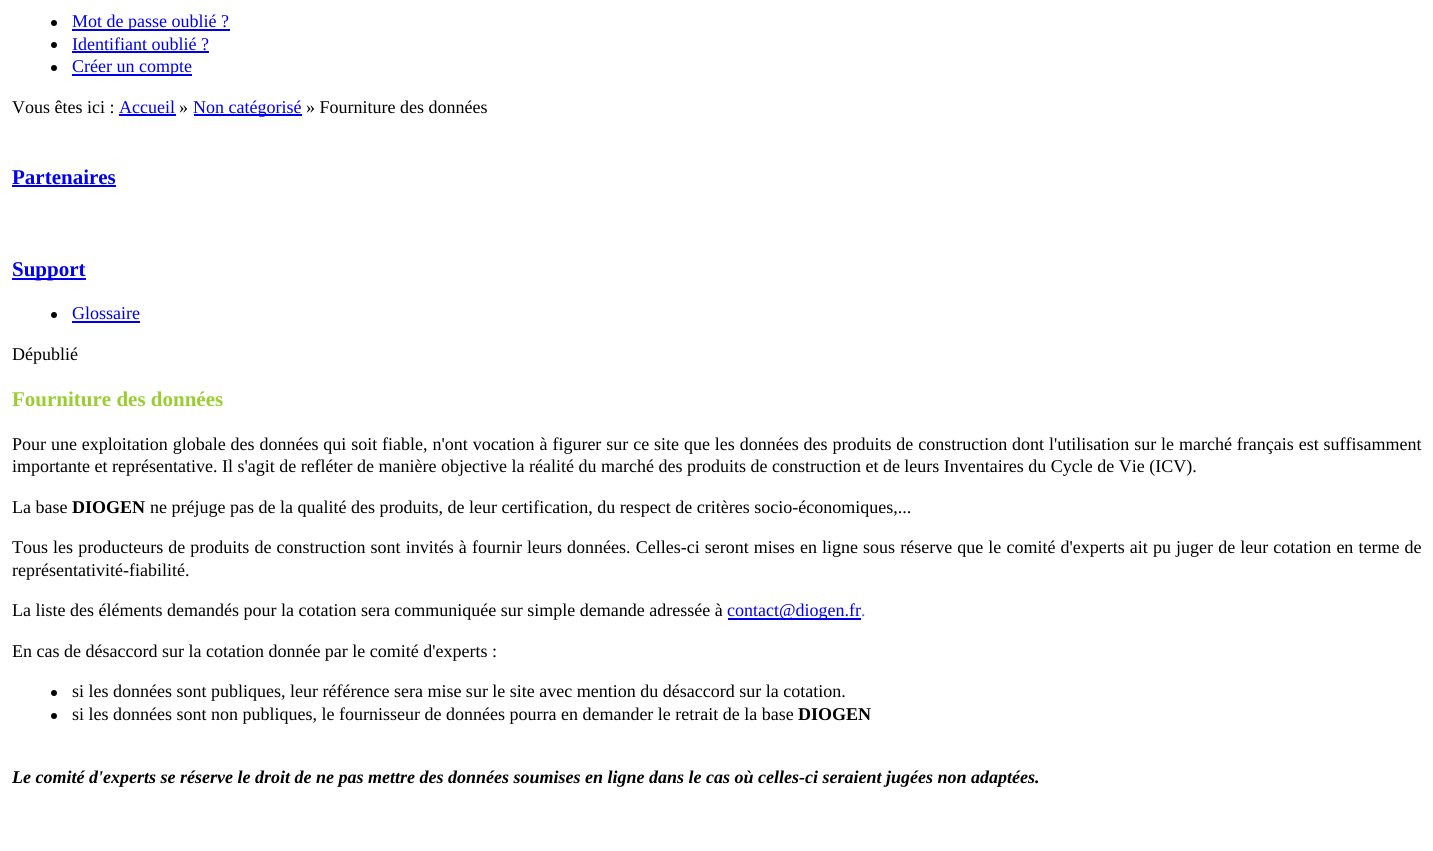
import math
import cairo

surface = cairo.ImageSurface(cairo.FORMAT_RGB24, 1433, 851)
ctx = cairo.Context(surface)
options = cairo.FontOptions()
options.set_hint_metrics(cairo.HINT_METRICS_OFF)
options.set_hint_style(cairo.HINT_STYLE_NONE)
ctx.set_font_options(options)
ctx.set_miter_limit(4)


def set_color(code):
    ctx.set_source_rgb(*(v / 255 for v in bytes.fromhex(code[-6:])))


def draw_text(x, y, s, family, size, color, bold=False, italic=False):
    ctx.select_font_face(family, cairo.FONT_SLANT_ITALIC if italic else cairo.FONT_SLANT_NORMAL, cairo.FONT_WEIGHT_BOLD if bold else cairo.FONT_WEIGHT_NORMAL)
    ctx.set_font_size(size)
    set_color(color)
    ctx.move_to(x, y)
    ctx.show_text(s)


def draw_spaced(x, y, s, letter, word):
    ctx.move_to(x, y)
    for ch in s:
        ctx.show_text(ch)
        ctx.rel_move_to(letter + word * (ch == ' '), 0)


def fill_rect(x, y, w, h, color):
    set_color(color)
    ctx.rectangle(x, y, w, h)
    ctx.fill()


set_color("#ffffff")
ctx.paint()
set_color("#000000")
ctx.arc(54, 23, 3, 0, 2 * math.pi)
ctx.fill()
fill_rect(72, 29, 158, 2, "#0000ee")
draw_text(72, 27, "Mot de passe oublié ?", "Liberation Serif", 18, "#0000ee")
set_color("#000000")
ctx.new_path()
ctx.arc(54, 45, 3, 0, 2 * math.pi)
ctx.fill()
draw_text(72, 50, "Identifiant oublié ?", "Liberation Serif", 18, "#0000ee")
fill_rect(72, 51, 137, 2, "#0000ee")
set_color("#000000")
ctx.new_path()
ctx.arc(54, 68, 3, 0, 2 * math.pi)
ctx.fill()
fill_rect(72, 74, 120, 2, "#0000ee")
draw_text(72, 72, "Créer un compte", "Liberation Serif", 18, "#0000ee")
draw_text(12, 113, "Vous êtes ici :", "Liberation Serif", 18, "#000000")
draw_text(119, 113, "Accueil", "Liberation Serif", 18, "#0000ee")
fill_rect(119, 114, 57, 2, "#0000ee")
draw_text(179, 113, "»", "Liberation Serif", 18, "#000000")
fill_rect(194, 114, 108, 2, "#0000ee")
draw_text(193, 113, "Non catégorisé", "Liberation Serif", 18, "#0000ee")
draw_text(306, 113, "» Fourniture des données", "Liberation Serif", 18, "#000000")
draw_text(12, 184, "Partenaires", "Liberation Serif", 21, "#0000ee", bold=True)
fill_rect(12, 185, 104, 2, "#0000ee")
fill_rect(12, 278, 74, 2, "#0000ee")
draw_text(12, 276, "Support", "Liberation Serif", 21, "#0000ee", bold=True)
set_color("#000000")
ctx.new_path()
ctx.arc(54, 315, 3, 0, 2 * math.pi)
ctx.fill()
draw_text(72, 319, "Glossaire", "Liberation Serif", 18, "#0000ee")
fill_rect(72, 321, 68, 2, "#0000ee")
draw_text(12, 360, "Dépublié", "Liberation Serif", 18, "#000000")
draw_text(12, 406, "Fourniture des données", "Liberation Serif", 21, "#9acd32", bold=True)
ctx.select_font_face("Liberation Serif")
ctx.set_font_size(18)
set_color("#000000")
draw_spaced(12, 450, "Pour une exploitation globale des données qui soit fiable, n'ont vocation à figurer sur ce site que les données des produits de construction dont l'utilisation sur le marché français est suffisamment", 0, 0.4)
draw_text(12, 472, "importante et représentative. Il s'agit de refléter de manière objective la réalité du marché des produits de construction et de leurs Inventaires du Cycle de Vie (ICV).", "Liberation Serif", 18, "#000000")
draw_text(12, 513, "La base", "Liberation Serif", 18, "#000000")
draw_text(72, 513, "DIOGEN", "Liberation Serif", 18, "#000000", bold=True)
draw_text(150, 513, "ne préjuge pas de la qualité des produits, de leur certification, du respect de critères socio-économiques,...", "Liberation Serif", 18, "#000000")
draw_spaced(12, 553, "Tous les producteurs de produits de construction sont invités à fournir leurs données. Celles-ci seront mises en ligne sous réserve que le comité d'experts ait pu juger de leur cotation en terme de", 0, 0.6)
draw_text(12, 576, "représentativité-fiabilité.", "Liberation Serif", 18, "#000000")
draw_text(12, 616, "La liste des éléments demandés pour la cotation sera communiquée sur simple demande adressée à", "Liberation Serif", 18, "#000000")
fill_rect(728, 618, 133, 2, "#0000ee")
draw_text(727, 616, "contact@diogen.fr", "Liberation Serif", 18, "#0000ee")
draw_text(861, 616, ".", "Liberation Serif", 18, "#3366ff")
draw_text(12, 657, "En cas de désaccord sur la cotation donnée par le comité d'experts :", "Liberation Serif", 18, "#000000")
ctx.new_path()
ctx.arc(54, 693, 3, 0, 2 * math.pi)
ctx.fill()
draw_text(72, 697, "si les données sont publiques, leur référence sera mise sur le site avec mention du désaccord sur la cotation.", "Liberation Serif", 18, "#000000")
ctx.new_path()
ctx.arc(54, 716, 3, 0, 2 * math.pi)
ctx.fill()
draw_text(72, 720, "si les données sont non publiques, le fournisseur de données pourra en demander le retrait de la base", "Liberation Serif", 18, "#000000")
draw_text(798, 720, "DIOGEN", "Liberation Serif", 18, "#000000", bold=True)
draw_text(12, 783, "Le comité d'experts se réserve le droit de ne pas mettre des données soumises en ligne dans le cas où celles-ci seraient jugées non adaptées.", "Liberation Serif", 18, "#000000", bold=True, italic=True)
surface.write_to_png("output.png")
